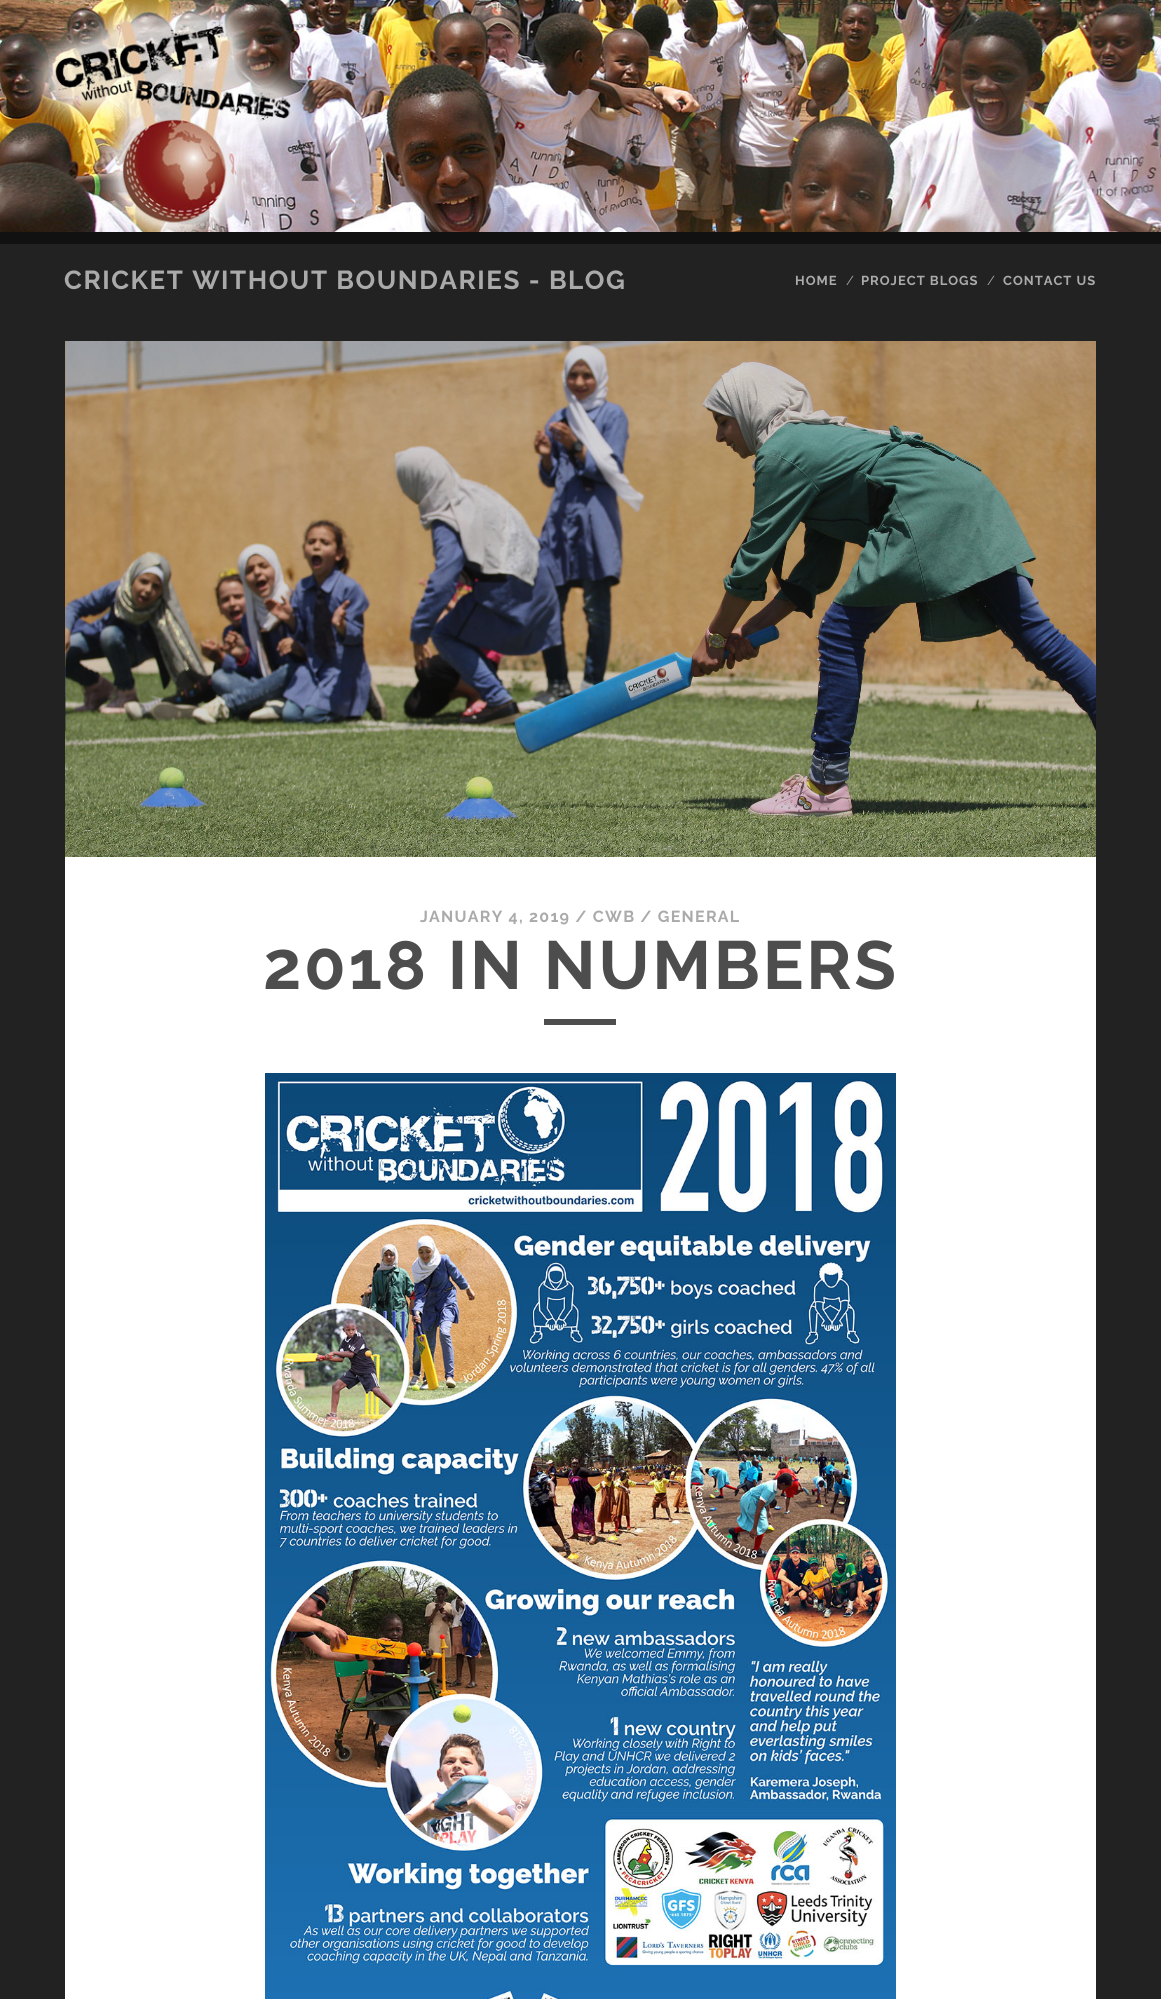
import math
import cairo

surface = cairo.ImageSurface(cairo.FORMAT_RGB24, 1161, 1999)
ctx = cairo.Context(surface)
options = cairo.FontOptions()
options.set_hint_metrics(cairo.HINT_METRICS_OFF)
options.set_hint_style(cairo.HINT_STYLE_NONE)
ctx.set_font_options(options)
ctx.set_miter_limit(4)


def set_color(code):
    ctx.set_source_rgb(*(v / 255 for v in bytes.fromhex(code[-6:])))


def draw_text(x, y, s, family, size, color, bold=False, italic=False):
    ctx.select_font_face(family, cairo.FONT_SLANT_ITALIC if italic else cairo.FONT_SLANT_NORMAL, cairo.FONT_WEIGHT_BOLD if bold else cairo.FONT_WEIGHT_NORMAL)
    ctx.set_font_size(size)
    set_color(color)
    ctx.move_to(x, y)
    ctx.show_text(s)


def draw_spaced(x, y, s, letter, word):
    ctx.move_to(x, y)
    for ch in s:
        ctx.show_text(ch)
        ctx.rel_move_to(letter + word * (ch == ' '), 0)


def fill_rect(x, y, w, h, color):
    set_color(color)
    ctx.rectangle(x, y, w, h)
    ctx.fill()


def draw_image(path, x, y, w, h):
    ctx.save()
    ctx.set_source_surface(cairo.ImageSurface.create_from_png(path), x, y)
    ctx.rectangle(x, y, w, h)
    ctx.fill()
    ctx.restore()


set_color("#222222")
ctx.paint()
draw_image("assets/img1.png", 0, 0, 1161, 232)
fill_rect(0, 232, 1161, 12, "#111111")
ctx.select_font_face("Raleway", cairo.FONT_SLANT_NORMAL, cairo.FONT_WEIGHT_BOLD)
ctx.set_font_size(26)
set_color("#aaaaaa")
draw_spaced(64, 289, "CRICKET WITHOUT BOUNDARIES - BLOG", 1.55, 0)
ctx.set_font_size(13)
draw_spaced(795, 285, "HOME", 1, 0)
draw_text(846, 285, "/", "Raleway", 13, "#aaaaaa")
ctx.select_font_face("Raleway", cairo.FONT_SLANT_NORMAL, cairo.FONT_WEIGHT_BOLD)
draw_spaced(861, 285, "PROJECT BLOGS", 1, 0)
draw_text(987, 285, "/", "Raleway", 13, "#aaaaaa")
ctx.select_font_face("Raleway", cairo.FONT_SLANT_NORMAL, cairo.FONT_WEIGHT_BOLD)
draw_spaced(1003, 285, "CONTACT US", 1, 0)
fill_rect(65, 857, 1031, 1142, "#ffffff")
draw_image("assets/img2.png", 65, 341, 1031, 516)
ctx.set_font_size(16)
set_color("#aaaaaa")
draw_spaced(420, 922, "JANUARY 4, 2019 / CWB / GENERAL", 1.25, 0)
ctx.set_font_size(68)
set_color("#4d4d4d")
draw_spaced(263, 989, "2018 IN NUMBERS", 2.75, 0)
fill_rect(544, 1019, 72, 6, "#4d4d4d")
draw_image("assets/img3.png", 265, 1073, 631, 926)
surface.write_to_png("output.png")
